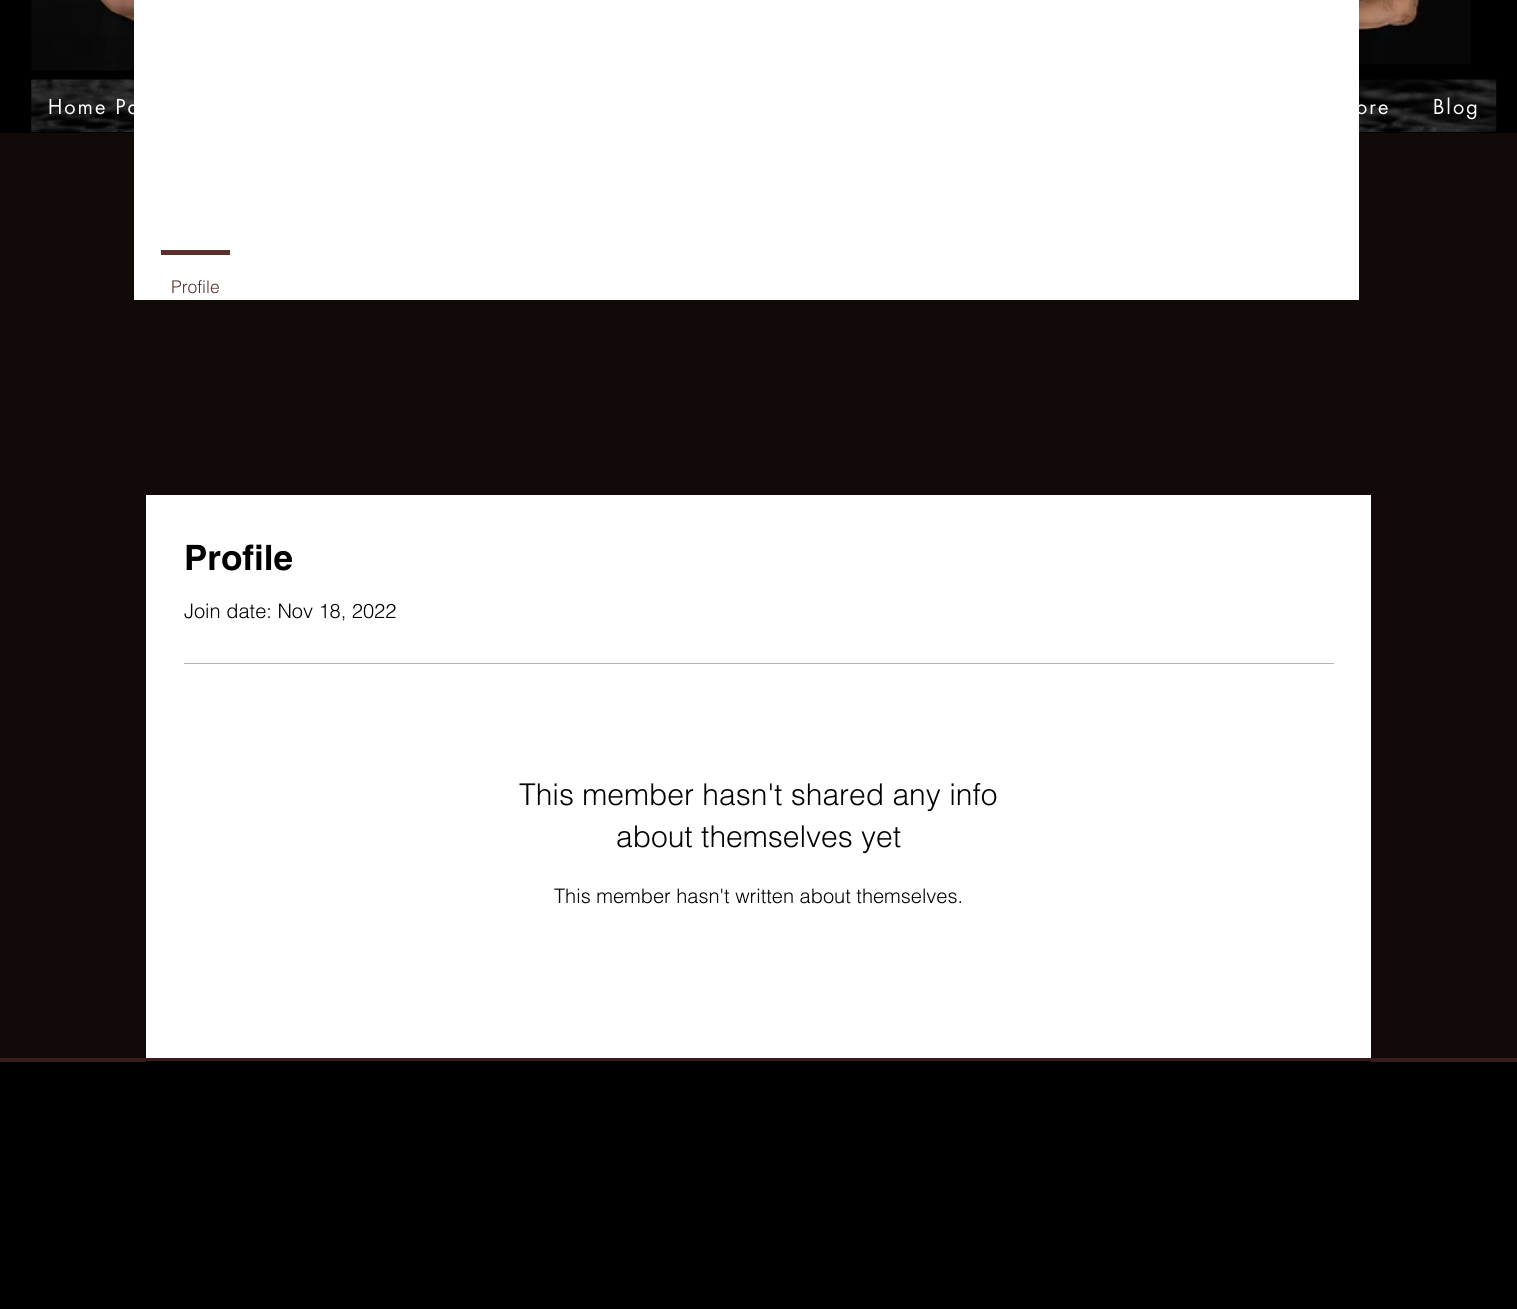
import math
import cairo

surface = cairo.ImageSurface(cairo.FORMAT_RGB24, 1517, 1309)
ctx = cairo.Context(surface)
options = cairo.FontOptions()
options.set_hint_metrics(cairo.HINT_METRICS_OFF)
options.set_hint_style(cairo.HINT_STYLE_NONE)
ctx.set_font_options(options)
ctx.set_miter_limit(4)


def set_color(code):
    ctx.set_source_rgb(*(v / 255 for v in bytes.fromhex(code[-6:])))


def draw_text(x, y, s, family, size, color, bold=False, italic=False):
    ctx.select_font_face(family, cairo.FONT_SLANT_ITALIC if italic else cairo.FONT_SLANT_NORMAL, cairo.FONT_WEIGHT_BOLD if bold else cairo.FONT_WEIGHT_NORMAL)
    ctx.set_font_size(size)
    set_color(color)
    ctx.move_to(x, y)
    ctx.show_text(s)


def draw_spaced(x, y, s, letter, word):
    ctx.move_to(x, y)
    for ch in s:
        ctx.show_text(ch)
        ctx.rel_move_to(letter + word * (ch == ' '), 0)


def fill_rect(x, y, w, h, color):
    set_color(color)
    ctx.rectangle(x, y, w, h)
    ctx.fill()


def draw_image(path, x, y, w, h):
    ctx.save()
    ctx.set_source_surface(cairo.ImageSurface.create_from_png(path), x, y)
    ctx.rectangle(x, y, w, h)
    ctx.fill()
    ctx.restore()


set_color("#120909")
ctx.paint()
fill_rect(0, 0, 1517, 133, "#000000")
draw_image("assets/img1.png", 31, 0, 103, 71)
draw_image("assets/img2.png", 1359, 0, 112, 65)
draw_image("assets/img3.png", 31, 79, 1466, 53)
ctx.select_font_face("futura")
ctx.set_font_size(20)
set_color("#ffffff")
draw_spaced(48, 114, "Home Pa", 2, 0)
draw_spaced(1356, 114, "ore", 2, 0)
draw_spaced(1433, 114, "Blog", 2, 0)
fill_rect(134, 0, 1225, 300, "#ffffff")
fill_rect(161, 250, 69, 5, "#5b2f2c")
draw_text(171, 293, "Profile", "helvetica Light", 17.5, "#5b2f2c")
fill_rect(146, 495, 1225, 563, "#ffffff")
draw_text(184, 570, "Profile", "helvetica", 35, "#000000", bold=True)
draw_text(184, 618, "Join date: Nov 18, 2022", "helvetica Light", 20, "#000000")
fill_rect(184, 663, 1150, 1, "#b3b3b3")
draw_text(519, 805, "This member hasn't shared any info", "helvetica Light", 30, "#000000")
draw_text(616, 847, "about themselves yet", "helvetica Light", 30, "#000000")
draw_text(554, 903, "This member hasn't written about themselves.", "helvetica Light", 20, "#000000")
fill_rect(0, 1062, 1517, 247, "#000000")
fill_rect(0, 1058, 1517, 4, "#381d1b")
fill_rect(146, 1061, 1225, 1, "#000000")
surface.write_to_png("output.png")
